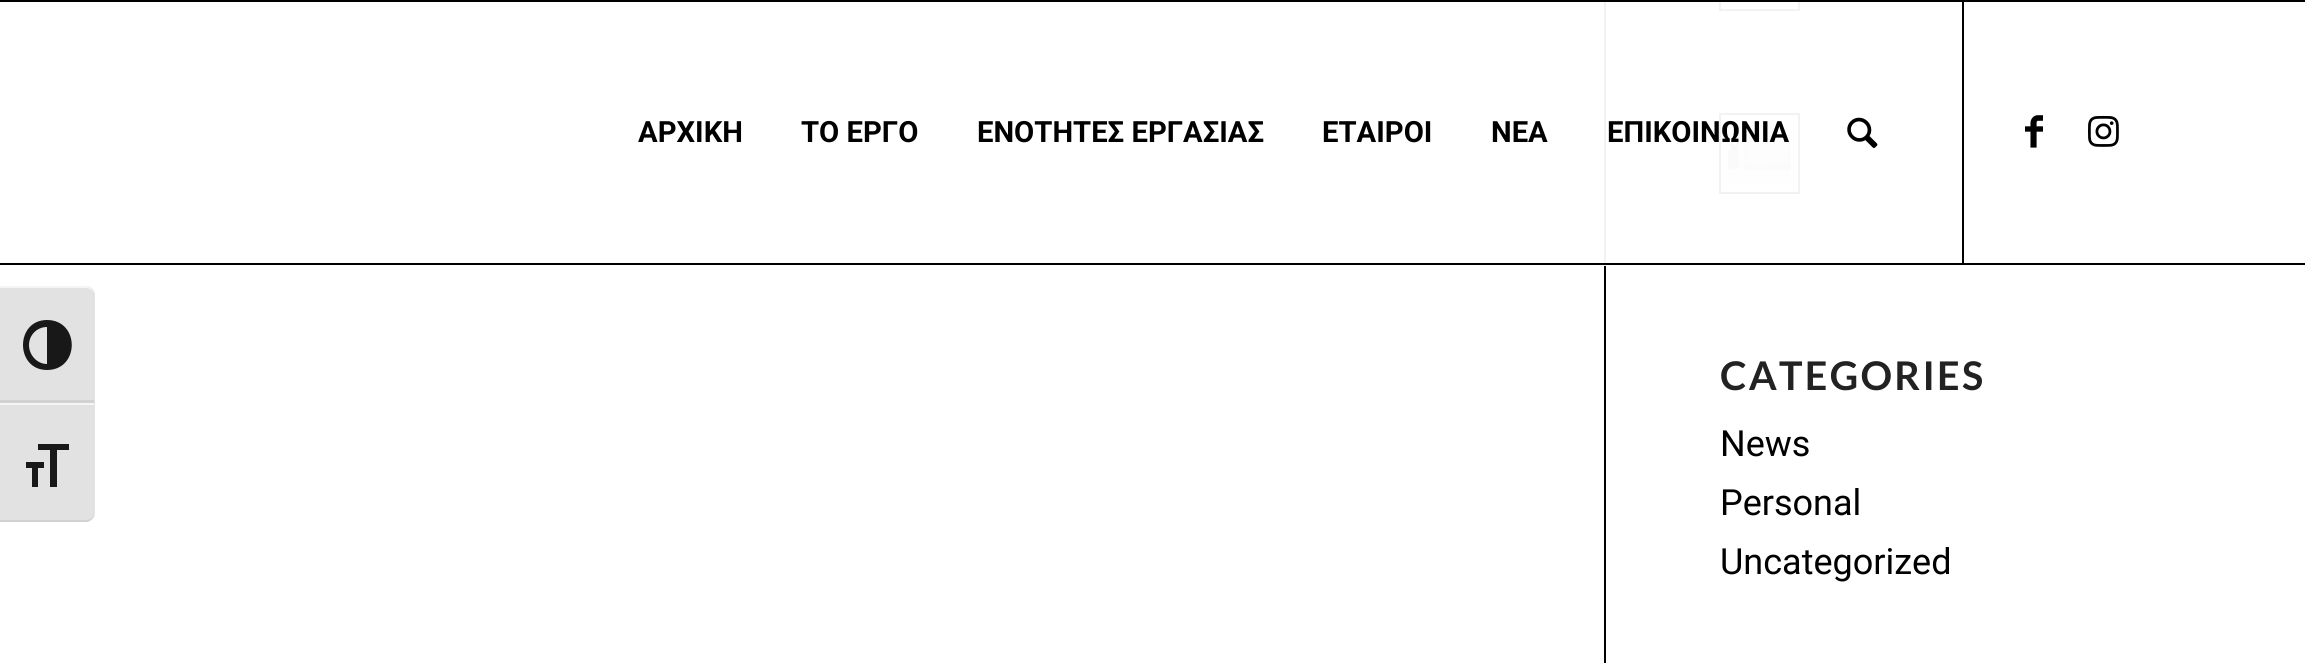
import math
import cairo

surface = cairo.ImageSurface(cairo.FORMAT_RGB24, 2305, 663)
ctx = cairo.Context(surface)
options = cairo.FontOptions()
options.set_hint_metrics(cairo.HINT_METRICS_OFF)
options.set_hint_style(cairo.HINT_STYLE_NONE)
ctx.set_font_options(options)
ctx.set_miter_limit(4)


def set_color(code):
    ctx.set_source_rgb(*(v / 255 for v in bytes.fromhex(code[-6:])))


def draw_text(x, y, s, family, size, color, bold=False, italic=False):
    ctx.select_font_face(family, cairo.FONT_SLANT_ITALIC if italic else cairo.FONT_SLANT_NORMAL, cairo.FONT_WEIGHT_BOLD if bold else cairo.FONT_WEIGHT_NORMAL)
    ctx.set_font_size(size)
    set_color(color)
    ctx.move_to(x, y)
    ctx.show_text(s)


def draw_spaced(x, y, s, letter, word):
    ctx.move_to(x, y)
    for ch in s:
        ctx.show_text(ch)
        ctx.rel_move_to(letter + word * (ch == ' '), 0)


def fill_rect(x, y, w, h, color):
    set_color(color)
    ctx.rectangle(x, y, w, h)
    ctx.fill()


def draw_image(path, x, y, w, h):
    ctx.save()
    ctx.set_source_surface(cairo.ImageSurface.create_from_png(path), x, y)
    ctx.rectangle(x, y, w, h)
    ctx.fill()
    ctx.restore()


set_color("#ffffff")
ctx.paint()
set_color("#e2e2e2")
ctx.new_path()
ctx.move_to(0, 286)
ctx.line_to(86, 286)
ctx.curve_to(91, 286, 95, 290, 95, 295)
ctx.line_to(95, 403)
ctx.line_to(0, 403)
ctx.close_path()
ctx.fill()
set_color("#f5f5f5")
ctx.new_path()
ctx.move_to(0, 288)
ctx.line_to(86, 288)
ctx.curve_to(90, 288, 94, 291, 94, 295)
ctx.curve_to(94, 290, 90, 286, 86, 286)
ctx.line_to(0, 286)
ctx.close_path()
ctx.fill()
fill_rect(0, 400, 94, 3, "#d2d2d2")
set_color("#181818")
ctx.new_path()
ctx.move_to(47, 320)
ctx.curve_to(15, 320, 15, 370, 47, 370)
ctx.curve_to(80, 370, 80, 320, 47, 320)
ctx.close_path()
ctx.move_to(29, 345)
ctx.curve_to(29, 335, 37, 327, 47, 327)
ctx.line_to(47, 364)
ctx.curve_to(37, 364, 29, 355, 29, 345)
ctx.close_path()
ctx.fill()
set_color("#e2e2e2")
ctx.new_path()
ctx.move_to(0, 403)
ctx.line_to(95, 403)
ctx.line_to(95, 513)
ctx.curve_to(95, 518, 91, 522, 86, 522)
ctx.line_to(0, 522)
ctx.close_path()
ctx.fill()
fill_rect(0, 403, 94, 2, "#f5f5f5")
set_color("#d2d2d2")
ctx.new_path()
ctx.move_to(86, 522)
ctx.curve_to(90, 522, 94, 518, 94, 513)
ctx.curve_to(94, 517, 90, 520, 86, 520)
ctx.line_to(0, 520)
ctx.line_to(0, 522)
ctx.close_path()
ctx.fill()
set_color("#181818")
ctx.new_path()
ctx.move_to(26, 462)
ctx.line_to(44, 462)
ctx.line_to(44, 468)
ctx.line_to(38, 468)
ctx.line_to(38, 487)
ctx.line_to(32, 487)
ctx.line_to(32, 468)
ctx.line_to(26, 468)
ctx.close_path()
ctx.move_to(69, 450)
ctx.line_to(57, 450)
ctx.line_to(57, 487)
ctx.line_to(50, 487)
ctx.line_to(50, 450)
ctx.line_to(38, 450)
ctx.line_to(38, 444)
ctx.line_to(69, 444)
ctx.close_path()
ctx.fill()
fill_rect(1604, 0, 2, 266, "#f2f2f2")
ctx.rectangle(1720, -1, 79, 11)
ctx.stroke()
fill_rect(0, 0, 2305, 2, "#000000")
fill_rect(0, 263, 2305, 2, "#000000")
fill_rect(1962, 2, 2, 261, "#000000")
draw_text(638, 142, "ΑΡΧΙΚΗ", "Roboto", 29.25, "#000000", bold=True)
draw_text(801, 142, "ΤΟ ΕΡΓΟ", "Roboto", 29.25, "#000000", bold=True)
draw_text(977, 142, "ΕΝΟΤΗΤΕΣ ΕΡΓΑΣΙΑΣ", "Roboto", 29.25, "#000000", bold=True)
draw_text(1322, 142, "ΕΤΑΙΡΟΙ", "Roboto", 29.25, "#000000", bold=True)
draw_text(1491, 142, "ΝΕΑ", "Roboto", 29.25, "#000000", bold=True)
ctx.rectangle(1720, 114, 79, 79)
set_color("#f2f2f2")
ctx.stroke()
draw_image("assets/img5.png", 1728, 121, 63, 64)
draw_text(1607, 142, "ΕΠΙΚΟΙΝΩΝΙΑ", "Roboto", 29.25, "#000000", bold=True)
draw_image("assets/img1.png", 1847, 117, 31, 31)
draw_image("assets/img2.png", 2025, 115, 18, 33)
draw_image("assets/img3.png", 2088, 115, 31, 32)
fill_rect(1604, 266, 2, 397, "#000000")
draw_image("assets/img4.png", 1728, 2, 63, 1)
ctx.select_font_face("Lato", cairo.FONT_SLANT_NORMAL, cairo.FONT_WEIGHT_BOLD)
ctx.set_font_size(39.5)
set_color("#222222")
draw_spaced(1720, 390, "CATEGORIES", 2.25, 0)
draw_text(1720, 456, "News", "Roboto", 36, "#000000")
draw_text(1720, 515, "Personal", "Roboto", 36, "#000000")
draw_text(1720, 574, "Uncategorized", "Roboto", 36, "#000000")
surface.write_to_png("output.png")
